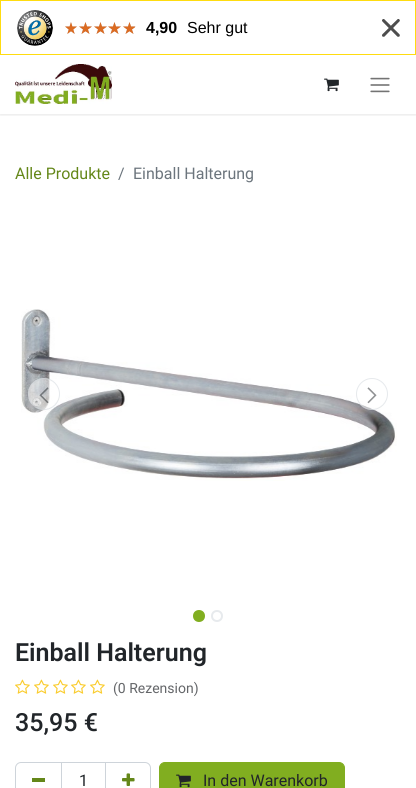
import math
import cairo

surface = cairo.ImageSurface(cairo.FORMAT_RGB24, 416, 788)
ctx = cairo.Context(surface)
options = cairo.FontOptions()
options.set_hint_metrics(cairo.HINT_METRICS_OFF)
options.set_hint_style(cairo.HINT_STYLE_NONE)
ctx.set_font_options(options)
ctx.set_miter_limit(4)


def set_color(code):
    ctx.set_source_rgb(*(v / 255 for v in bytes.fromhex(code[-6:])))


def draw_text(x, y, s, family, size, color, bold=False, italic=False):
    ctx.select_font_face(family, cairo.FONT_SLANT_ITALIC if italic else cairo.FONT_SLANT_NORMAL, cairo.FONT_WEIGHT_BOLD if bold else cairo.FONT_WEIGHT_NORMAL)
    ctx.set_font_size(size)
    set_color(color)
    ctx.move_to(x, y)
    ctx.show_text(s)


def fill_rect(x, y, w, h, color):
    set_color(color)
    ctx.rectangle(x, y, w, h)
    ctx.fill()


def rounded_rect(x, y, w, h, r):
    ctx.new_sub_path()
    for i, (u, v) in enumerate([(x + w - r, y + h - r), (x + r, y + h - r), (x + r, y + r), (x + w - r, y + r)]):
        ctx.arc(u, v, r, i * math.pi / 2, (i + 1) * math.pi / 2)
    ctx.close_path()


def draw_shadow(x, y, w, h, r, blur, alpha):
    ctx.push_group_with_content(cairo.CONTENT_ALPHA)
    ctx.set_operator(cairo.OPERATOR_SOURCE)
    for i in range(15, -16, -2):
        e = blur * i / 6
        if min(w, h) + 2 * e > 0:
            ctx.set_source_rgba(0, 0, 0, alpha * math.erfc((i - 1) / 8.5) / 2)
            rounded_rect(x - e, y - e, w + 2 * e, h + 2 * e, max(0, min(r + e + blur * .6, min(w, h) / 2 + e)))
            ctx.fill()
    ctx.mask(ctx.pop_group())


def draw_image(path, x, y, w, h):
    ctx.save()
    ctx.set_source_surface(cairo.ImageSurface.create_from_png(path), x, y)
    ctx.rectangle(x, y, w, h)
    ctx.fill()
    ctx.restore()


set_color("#ffffff")
ctx.paint()
ctx.save()
ctx.rectangle(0, 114, 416, 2)
ctx.clip()
set_color("#000000")
draw_shadow(0, 56, 416, 59, 0, 1.5, 0.1)
ctx.restore()
ctx.rectangle(0.5, 0.5, 415, 54)
set_color("#ffdc0f")
ctx.set_line_width(1)
ctx.stroke()
draw_image("assets/img1.png", 17, 10, 36, 36)
draw_image("assets/img2.png", 65, 22, 12, 12)
draw_image("assets/img3.png", 79, 22, 13, 12)
draw_image("assets/img3.png", 94, 22, 13, 12)
draw_image("assets/img3.png", 108, 22, 13, 12)
draw_image("assets/img3.png", 123, 22, 13, 12)
draw_image("assets/img4.png", 65, 22, 12, 12)
draw_image("assets/img5.png", 79, 22, 13, 12)
draw_image("assets/img5.png", 94, 22, 13, 12)
draw_image("assets/img5.png", 108, 22, 13, 12)
draw_image("assets/img6.png", 123, 22, 12, 12)
draw_text(146, 33, "4,90", "Liberation Sans", 16, "#000000", bold=True)
draw_text(187, 33, "Sehr gut", "Liberation Sans", 16, "#000000")
draw_image("assets/img7.png", 382, 19, 18, 18)
draw_image("assets/img8.png", 15, 64, 97, 40)
draw_image("assets/img9.png", 324, 78, 15, 14)
draw_image("assets/img10.png", 370, 77, 20, 16)
draw_text(15, 179, "Alle Produkte", "Roboto", 16, "#648719")
draw_text(118, 179, "/", "Roboto", 16, "#6c757d")
draw_text(133, 179, "Einball Halterung", "Roboto", 16, "#6c757d")
draw_image("assets/img11.png", 21, 309, 376, 172)
ctx.set_source_rgba(1, 1, 1, 0.5)
ctx.arc(44, 394, 16, 0, 2 * math.pi)
ctx.fill()
ctx.arc(44, 394, 15.5, 0, 2 * math.pi)
ctx.set_source_rgba(0.808, 0.831, 0.855, 0.5)
ctx.stroke()
draw_image("assets/img12.png", 39, 387, 10, 17)
ctx.set_source_rgba(1, 1, 1, 0.5)
ctx.arc(372, 394, 16, 0, 2 * math.pi)
ctx.fill()
ctx.arc(372, 394, 15.5, 0, 2 * math.pi)
ctx.set_source_rgba(0.808, 0.831, 0.855, 0.5)
ctx.stroke()
draw_image("assets/img13.png", 367, 387, 10, 17)
set_color("#81ae20")
ctx.arc(199, 616, 5, 0, 2 * math.pi)
ctx.fill_preserve()
ctx.set_line_width(2)
ctx.stroke()
ctx.arc(217, 616, 5, 0, 2 * math.pi)
set_color("#e7eaed")
ctx.stroke()
draw_text(15, 661, "Einball Halterung", "Roboto SemiBold", 25, "#212529")
draw_image("assets/img14.png", 15, 679, 15, 15)
draw_image("assets/img14.png", 34, 679, 15, 15)
draw_image("assets/img14.png", 53, 679, 15, 15)
draw_image("assets/img14.png", 71, 679, 15, 15)
draw_image("assets/img14.png", 90, 679, 15, 15)
draw_text(113, 693, "(0 Rezension)", "Roboto", 14, "#646669")
draw_text(15, 731, "35,95 €", "Roboto Medium", 25, "#212529")
ctx.rectangle(61.5, 762.5, 44, 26)
set_color("#ced4da")
ctx.set_line_width(1)
ctx.stroke()
ctx.new_path()
ctx.move_to(21, 762.5)
ctx.line_to(61.5, 762.5)
ctx.line_to(61.5, 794.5)
ctx.line_to(21, 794.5)
ctx.curve_to(18, 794.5, 15.5, 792, 15.5, 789)
ctx.line_to(15.5, 768)
ctx.curve_to(15.5, 765, 18, 762.5, 21, 762.5)
ctx.close_path()
ctx.stroke()
fill_rect(32, 778, 13, 4, "#648719")
draw_text(79, 786, "1", "Roboto", 16, "#212529")
ctx.new_path()
ctx.move_to(105.5, 762.5)
ctx.line_to(145, 762.5)
ctx.curve_to(148, 762.5, 150.5, 765, 150.5, 768)
ctx.line_to(150.5, 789)
ctx.curve_to(150.5, 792, 148, 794.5, 145, 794.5)
ctx.line_to(105.5, 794.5)
ctx.close_path()
set_color("#ced4da")
ctx.stroke()
draw_image("assets/img15.png", 122, 773, 13, 13)
set_color("#81ae20")
rounded_rect(159.5, 762.5, 185, 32, 5.5)
ctx.fill_preserve()
ctx.stroke()
draw_image("assets/img16.png", 176, 774, 15, 14)
draw_text(203, 786, "In den Warenkorb", "Roboto", 16, "#212529")
surface.write_to_png("output.png")
